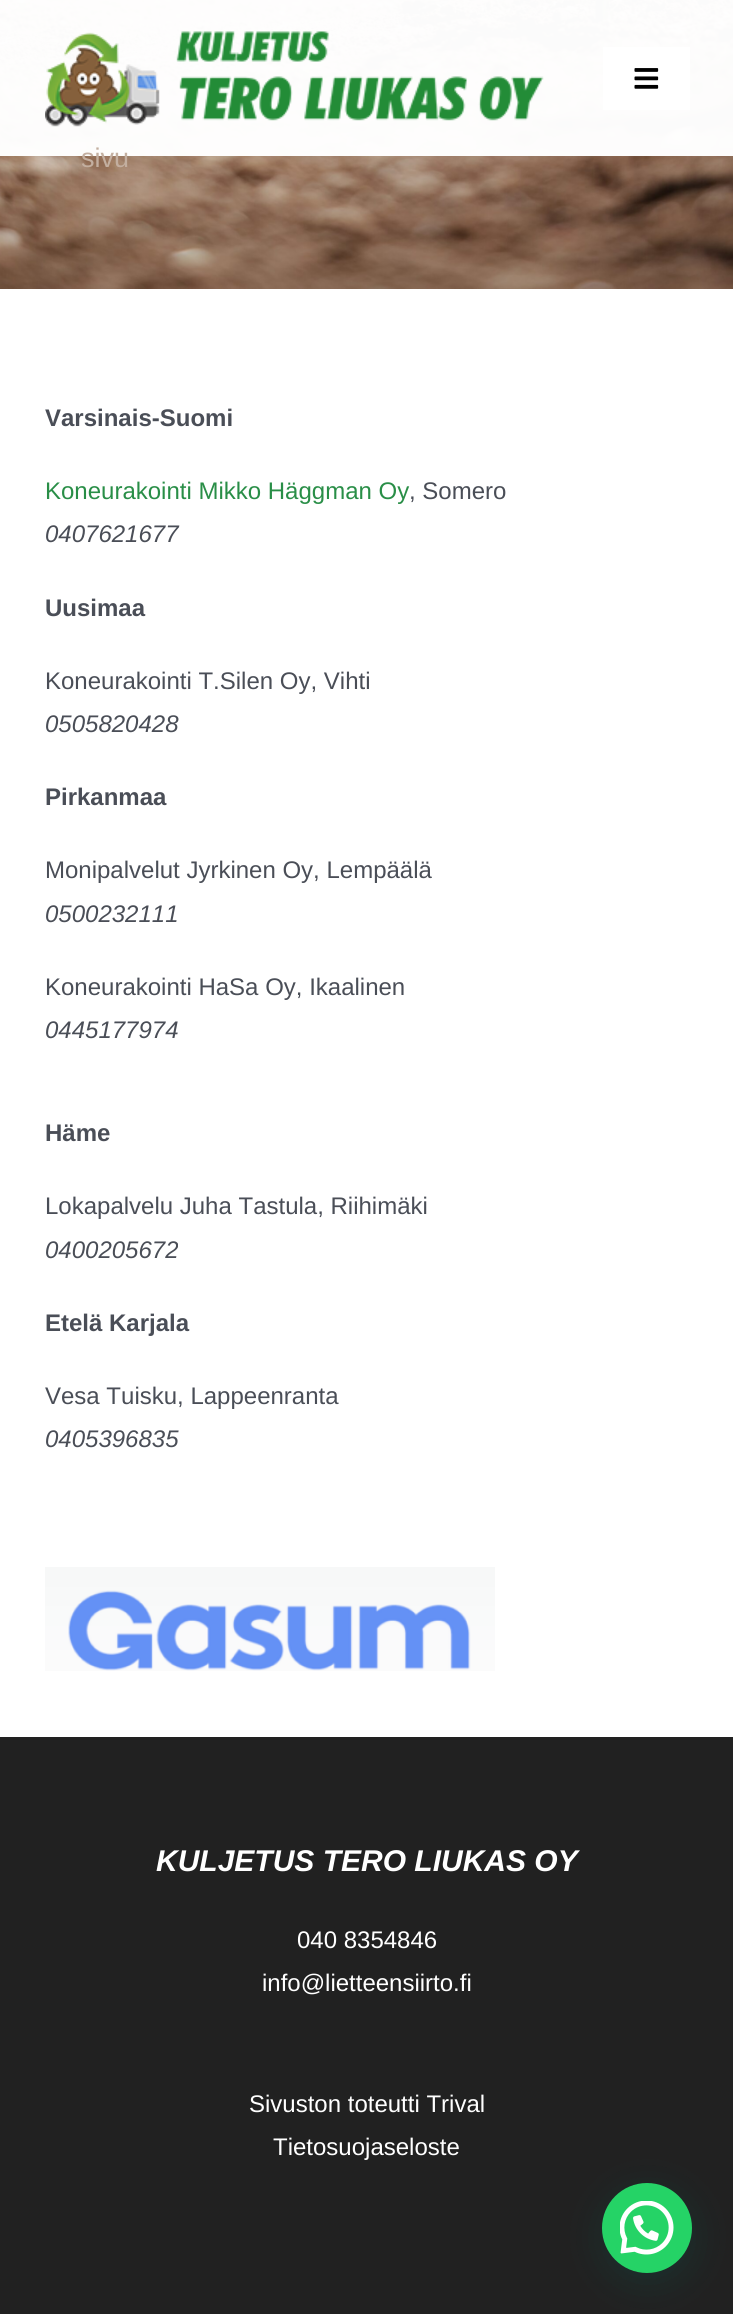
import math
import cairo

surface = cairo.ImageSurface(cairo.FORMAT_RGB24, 733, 2314)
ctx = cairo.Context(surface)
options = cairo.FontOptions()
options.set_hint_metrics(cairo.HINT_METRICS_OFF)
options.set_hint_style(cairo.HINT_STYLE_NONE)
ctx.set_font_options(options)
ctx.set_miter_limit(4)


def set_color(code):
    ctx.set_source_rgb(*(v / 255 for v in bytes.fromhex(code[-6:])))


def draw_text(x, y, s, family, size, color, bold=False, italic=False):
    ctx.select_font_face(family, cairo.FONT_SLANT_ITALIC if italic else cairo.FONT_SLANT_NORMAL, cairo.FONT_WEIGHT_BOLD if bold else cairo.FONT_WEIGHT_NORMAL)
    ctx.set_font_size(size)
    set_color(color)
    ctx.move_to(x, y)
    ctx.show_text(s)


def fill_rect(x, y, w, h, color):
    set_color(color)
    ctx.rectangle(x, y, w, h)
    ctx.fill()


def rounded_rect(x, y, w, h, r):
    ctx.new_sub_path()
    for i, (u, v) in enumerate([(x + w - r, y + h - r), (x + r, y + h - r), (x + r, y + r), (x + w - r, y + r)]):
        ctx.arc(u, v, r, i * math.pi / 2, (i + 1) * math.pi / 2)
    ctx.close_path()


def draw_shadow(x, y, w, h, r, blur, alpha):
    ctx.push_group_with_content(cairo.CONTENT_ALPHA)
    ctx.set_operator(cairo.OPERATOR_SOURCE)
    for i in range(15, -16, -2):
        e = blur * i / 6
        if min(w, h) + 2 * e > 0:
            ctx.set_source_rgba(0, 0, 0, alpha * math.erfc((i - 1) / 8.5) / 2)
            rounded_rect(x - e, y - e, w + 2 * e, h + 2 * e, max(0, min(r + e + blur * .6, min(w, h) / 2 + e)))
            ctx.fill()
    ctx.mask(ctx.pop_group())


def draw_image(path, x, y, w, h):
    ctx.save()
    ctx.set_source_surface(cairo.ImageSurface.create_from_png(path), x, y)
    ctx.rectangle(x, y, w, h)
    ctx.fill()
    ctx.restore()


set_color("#ffffff")
ctx.paint()
draw_image("assets/img3.png", 0, 0, 733, 289)
ctx.set_source_rgba(1, 1, 1, 0.94)
ctx.rectangle(0, 0, 733, 156)
ctx.fill()
ctx.set_source_rgba(1, 1, 1, 0.7)
ctx.rectangle(0, 0, 733, 156)
ctx.fill()
draw_image("assets/img1.png", 45, 31, 499, 96)
fill_rect(603, 47, 87, 63, "#ffffff")
draw_image("assets/img2.png", 634, 68, 25, 21)
draw_text(81, 167, "sivu", "Liberation Sans", 27, "#c3afa0")
draw_text(45, 426, "Varsinais-Suomi", "Liberation Sans", 24, "#4a4e57", bold=True)
draw_text(45, 499, "Koneurakointi Mikko Häggman Oy", "Liberation Sans", 24, "#298e47")
draw_text(409, 499, ", Somero", "Liberation Sans", 24, "#4a4e57")
draw_text(45, 542, "0407621677", "Liberation Sans", 24, "#4a4e57", italic=True)
draw_text(45, 616, "Uusimaa", "Liberation Sans", 24, "#4a4e57", bold=True)
draw_text(45, 689, "Koneurakointi T.Silen Oy, Vihti", "Liberation Sans", 24, "#4a4e57")
draw_text(45, 732, "0505820428", "Liberation Sans", 24, "#4a4e57", italic=True)
draw_text(45, 805, "Pirkanmaa", "Liberation Sans", 24, "#4a4e57", bold=True)
draw_text(45, 878, "Monipalvelut Jyrkinen Oy, Lempäälä", "Liberation Sans", 24, "#4a4e57")
draw_text(45, 922, "0500232111", "Liberation Sans", 24, "#4a4e57", italic=True)
draw_text(45, 995, "Koneurakointi HaSa Oy, Ikaalinen", "Liberation Sans", 24, "#4a4e57")
draw_text(45, 1038, "0445177974", "Liberation Sans", 24, "#4a4e57", italic=True)
draw_text(45, 1141, "Häme", "Liberation Sans", 24, "#4a4e57", bold=True)
draw_text(45, 1214, "Lokapalvelu Juha Tastula, Riihimäki", "Liberation Sans", 24, "#4a4e57")
draw_text(45, 1258, "0400205672", "Liberation Sans", 24, "#4a4e57", italic=True)
draw_text(45, 1331, "Etelä Karjala", "Liberation Sans", 24, "#4a4e57", bold=True)
draw_text(45, 1404, "Vesa Tuisku, Lappeenranta", "Liberation Sans", 24, "#4a4e57")
draw_text(45, 1447, "0405396835", "Liberation Sans", 24, "#4a4e57", italic=True)
draw_image("assets/img4.png", 45, 1567, 450, 104)
fill_rect(0, 1737, 733, 577, "#212121")
draw_text(156, 1871, "KULJETUS TERO LIUKAS OY", "Liberation Sans", 30, "#ffffff", bold=True, italic=True)
draw_text(297, 1948, "040 8354846", "Liberation Sans", 24, "#ffffff")
draw_text(262, 1991, "info@lietteensiirto.fi", "Liberation Sans", 24, "#ffffff")
draw_text(249, 2112, "Sivuston toteutti Trival", "Liberation Sans", 24, "#ffffff")
draw_text(273, 2155, "Tietosuojaseloste", "Liberation Sans", 24, "#ffffff")
set_color("#075e54")
draw_shadow(603, 2192, 90, 90, 45, 18, 0.24)
set_color("#25d366")
ctx.arc(647, 2228, 45, 0, 2 * math.pi)
ctx.fill()
draw_image("assets/img5.png", 620, 2201, 54, 54)
surface.write_to_png("output.png")
